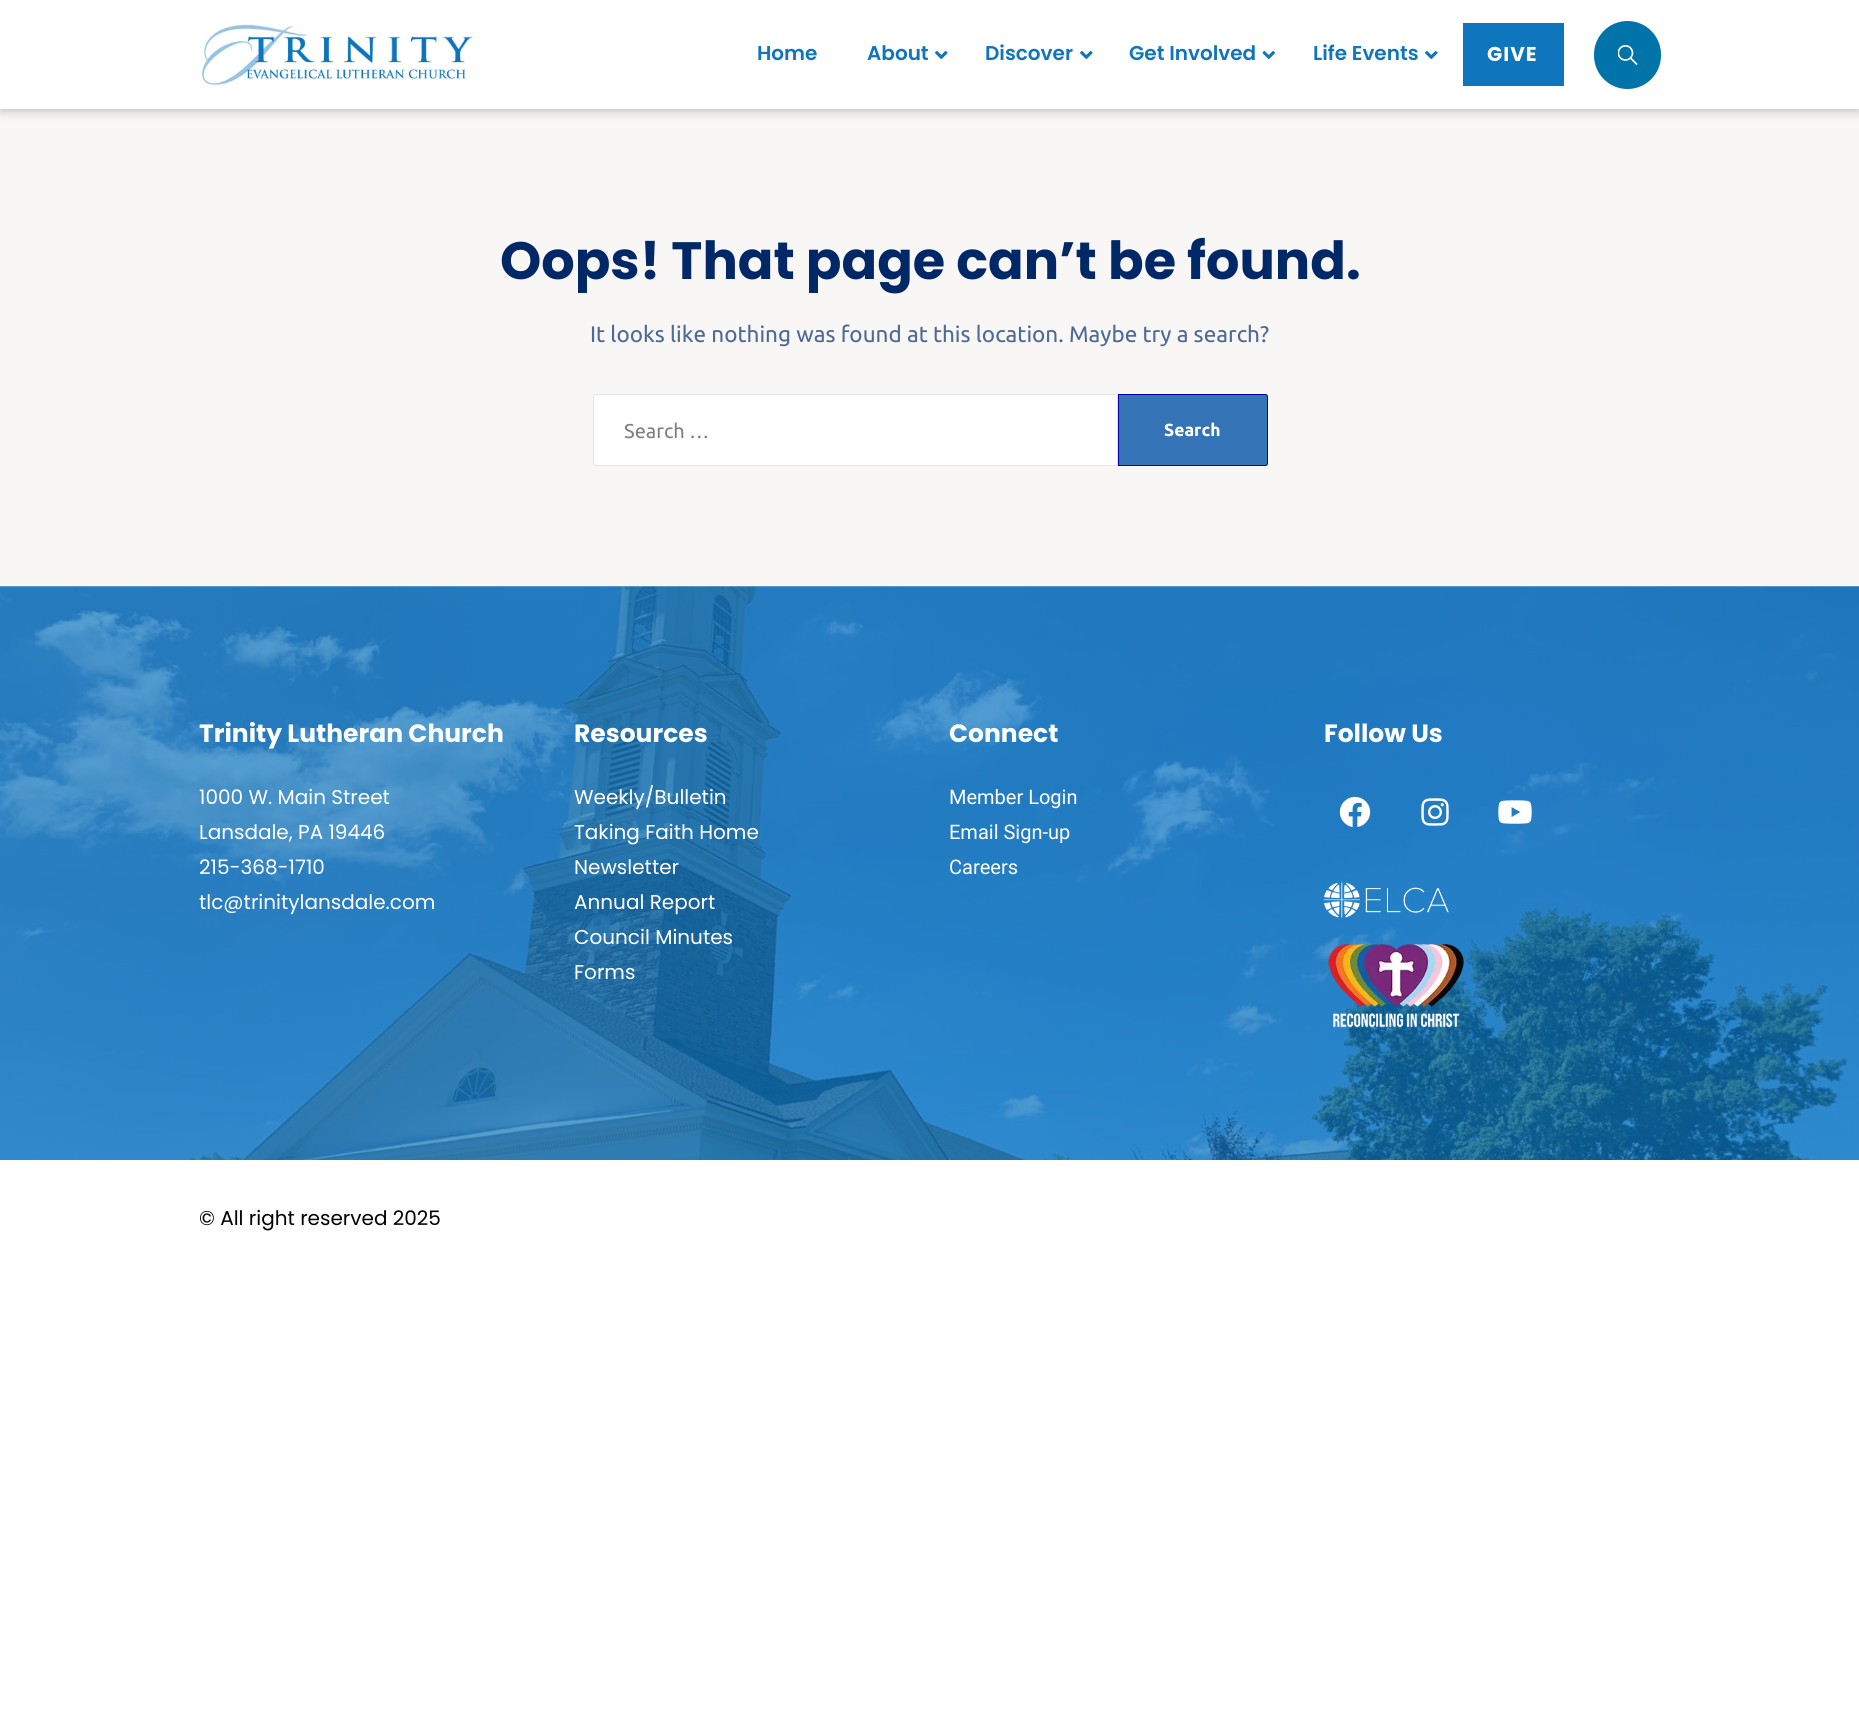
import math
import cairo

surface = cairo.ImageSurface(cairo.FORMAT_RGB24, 1859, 1719)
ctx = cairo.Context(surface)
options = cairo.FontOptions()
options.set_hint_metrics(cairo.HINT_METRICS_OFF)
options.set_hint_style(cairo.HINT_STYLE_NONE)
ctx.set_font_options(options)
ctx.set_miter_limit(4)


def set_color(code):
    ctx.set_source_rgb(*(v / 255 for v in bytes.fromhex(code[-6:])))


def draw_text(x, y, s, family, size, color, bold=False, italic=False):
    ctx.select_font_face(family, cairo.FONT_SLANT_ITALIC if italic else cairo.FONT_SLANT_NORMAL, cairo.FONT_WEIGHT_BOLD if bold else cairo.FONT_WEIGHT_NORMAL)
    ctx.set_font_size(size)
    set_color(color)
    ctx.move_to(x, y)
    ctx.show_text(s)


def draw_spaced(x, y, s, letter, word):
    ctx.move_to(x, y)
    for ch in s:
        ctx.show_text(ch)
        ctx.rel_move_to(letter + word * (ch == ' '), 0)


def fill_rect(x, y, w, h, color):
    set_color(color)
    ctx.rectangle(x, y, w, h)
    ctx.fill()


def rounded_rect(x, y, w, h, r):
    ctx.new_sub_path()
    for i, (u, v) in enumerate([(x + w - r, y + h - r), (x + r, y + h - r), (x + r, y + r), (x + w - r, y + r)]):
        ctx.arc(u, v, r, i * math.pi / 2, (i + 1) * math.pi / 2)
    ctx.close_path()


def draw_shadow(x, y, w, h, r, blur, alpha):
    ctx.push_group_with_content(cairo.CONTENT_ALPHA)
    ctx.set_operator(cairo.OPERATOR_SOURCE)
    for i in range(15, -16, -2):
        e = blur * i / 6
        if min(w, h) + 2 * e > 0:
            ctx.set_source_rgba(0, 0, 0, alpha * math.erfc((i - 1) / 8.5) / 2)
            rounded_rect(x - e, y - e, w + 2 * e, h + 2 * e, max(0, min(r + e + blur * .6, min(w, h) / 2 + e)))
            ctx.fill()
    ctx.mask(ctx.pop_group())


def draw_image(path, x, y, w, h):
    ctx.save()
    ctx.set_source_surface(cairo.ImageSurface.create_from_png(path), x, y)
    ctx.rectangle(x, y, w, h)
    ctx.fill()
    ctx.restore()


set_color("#ffffff")
ctx.paint()
fill_rect(0, 109, 1859, 477, "#f8f7f5")
set_color("#000000")
draw_shadow(0, 0, 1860, 109, 0, 6, 0.3)
fill_rect(0, 0, 1859, 109, "#ffffff")
draw_image("assets/img1.png", 201, 24, 273, 61)
draw_text(757, 60, "Home", "Poppins SemiBold", 20, "#0f75bd")
draw_text(867, 60, "About", "Poppins SemiBold", 20, "#0f75bd")
draw_image("assets/img2.png", 935, 51, 13, 8)
draw_text(985, 60, "Discover", "Poppins SemiBold", 20, "#0f75bd")
draw_image("assets/img2.png", 1080, 51, 13, 8)
draw_text(1129, 60, "Get Involved", "Poppins SemiBold", 20, "#0f75bd")
draw_image("assets/img3.png", 1262, 51, 13, 8)
draw_text(1313, 60, "Life Events", "Poppins SemiBold", 20, "#0f75bd")
draw_image("assets/img2.png", 1425, 51, 13, 8)
fill_rect(1463, 23, 101, 63, "#0f75bd")
ctx.select_font_face("Poppins", cairo.FONT_SLANT_NORMAL, cairo.FONT_WEIGHT_BOLD)
set_color("#ffffff")
draw_spaced(1487, 61, "GIVE", 1, 0)
set_color("#0073a8")
rounded_rect(1594, 21, 67, 68, 33.5)
ctx.fill()
draw_image("assets/img4.png", 1618, 45, 20, 20)
draw_text(500, 279, "Oops! That page can’t be found.", "Poppins", 52.5, "#002866", bold=True)
draw_text(590, 342, "It looks like nothing was found at this location. Maybe try a search?", "Ubuntu", 22.5, "#4d6995")
set_color("#ffffff")
ctx.new_path()
ctx.move_to(595.5, 394)
ctx.line_to(1118, 394)
ctx.line_to(1118, 466)
ctx.line_to(595.5, 466)
ctx.curve_to(594, 466, 593, 465, 593, 463.5)
ctx.line_to(593, 396.5)
ctx.curve_to(593, 395, 594, 394, 595.5, 394)
ctx.close_path()
ctx.fill()
ctx.new_path()
ctx.move_to(595.5, 394.5)
ctx.line_to(1117.5, 394.5)
ctx.line_to(1117.5, 465.5)
ctx.line_to(595.5, 465.5)
ctx.curve_to(594.5, 465.5, 593.5, 464.5, 593.5, 463.5)
ctx.line_to(593.5, 396.5)
ctx.curve_to(593.5, 395.5, 594.5, 394.5, 595.5, 394.5)
ctx.close_path()
ctx.set_source_rgba(0, 0, 0, 0.1)
ctx.set_line_width(1)
ctx.stroke()
draw_text(624, 438, "Search …", "Ubuntu", 20, "#808080")
set_color("#3573b7")
ctx.new_path()
ctx.move_to(1118.5, 394.5)
ctx.line_to(1265.5, 394.5)
ctx.curve_to(1266.5, 394.5, 1267.5, 395.5, 1267.5, 396.5)
ctx.line_to(1267.5, 463.5)
ctx.curve_to(1267.5, 464.5, 1266.5, 465.5, 1265.5, 465.5)
ctx.line_to(1118.5, 465.5)
ctx.close_path()
ctx.fill_preserve()
set_color("#0300a8")
ctx.stroke()
draw_text(1164, 436, "Search", "Ubuntu", 17.5, "#ffffff", bold=True)
draw_image("assets/img5.png", 0, 586, 1859, 574)
draw_text(199, 742, "Trinity Lutheran Church", "Poppins", 25, "#ffffff", bold=True)
draw_text(199, 804, "1000 W. Main Street", "Poppins", 20, "#ffffff")
draw_text(199, 839, "Lansdale, PA 19446", "Poppins", 20, "#ffffff")
draw_text(199, 874, "215-368-1710", "Poppins", 20, "#ffffff")
draw_text(199, 909, "tlc@trinitylansdale.com", "Poppins", 20, "#ffffff")
draw_text(574, 742, "Resources", "Poppins", 25, "#ffffff", bold=True)
draw_text(574, 804, "Weekly/Bulletin", "Poppins", 20, "#ffffff")
draw_text(574, 839, "Taking Faith Home", "Poppins", 20, "#ffffff")
draw_text(574, 874, "Newsletter", "Poppins", 20, "#ffffff")
draw_text(574, 909, "Annual Report", "Poppins", 20, "#ffffff")
draw_text(574, 944, "Council Minutes", "Poppins", 20, "#ffffff")
draw_text(574, 979, "Forms", "Poppins", 20, "#ffffff")
draw_text(949, 742, "Connect", "Poppins", 25, "#ffffff", bold=True)
draw_text(949, 804, "Member Login", "Roboto", 20, "#ffffff")
draw_text(949, 839, "Email Sign-up", "Roboto", 20, "#ffffff")
draw_text(949, 874, "Careers", "Roboto", 20, "#ffffff")
draw_text(1324, 742, "Follow Us", "Poppins", 25, "#ffffff", bold=True)
draw_image("assets/img6.png", 1339, 796, 32, 31)
draw_image("assets/img7.png", 1421, 798, 28, 28)
draw_image("assets/img8.png", 1498, 800, 34, 24)
draw_image("assets/img9.png", 1323, 882, 126, 36)
draw_image("assets/img10.png", 1328, 944, 136, 84)
draw_text(199, 1225, "© All right reserved 2025", "Poppins", 20, "#000000")
surface.write_to_png("output.png")
